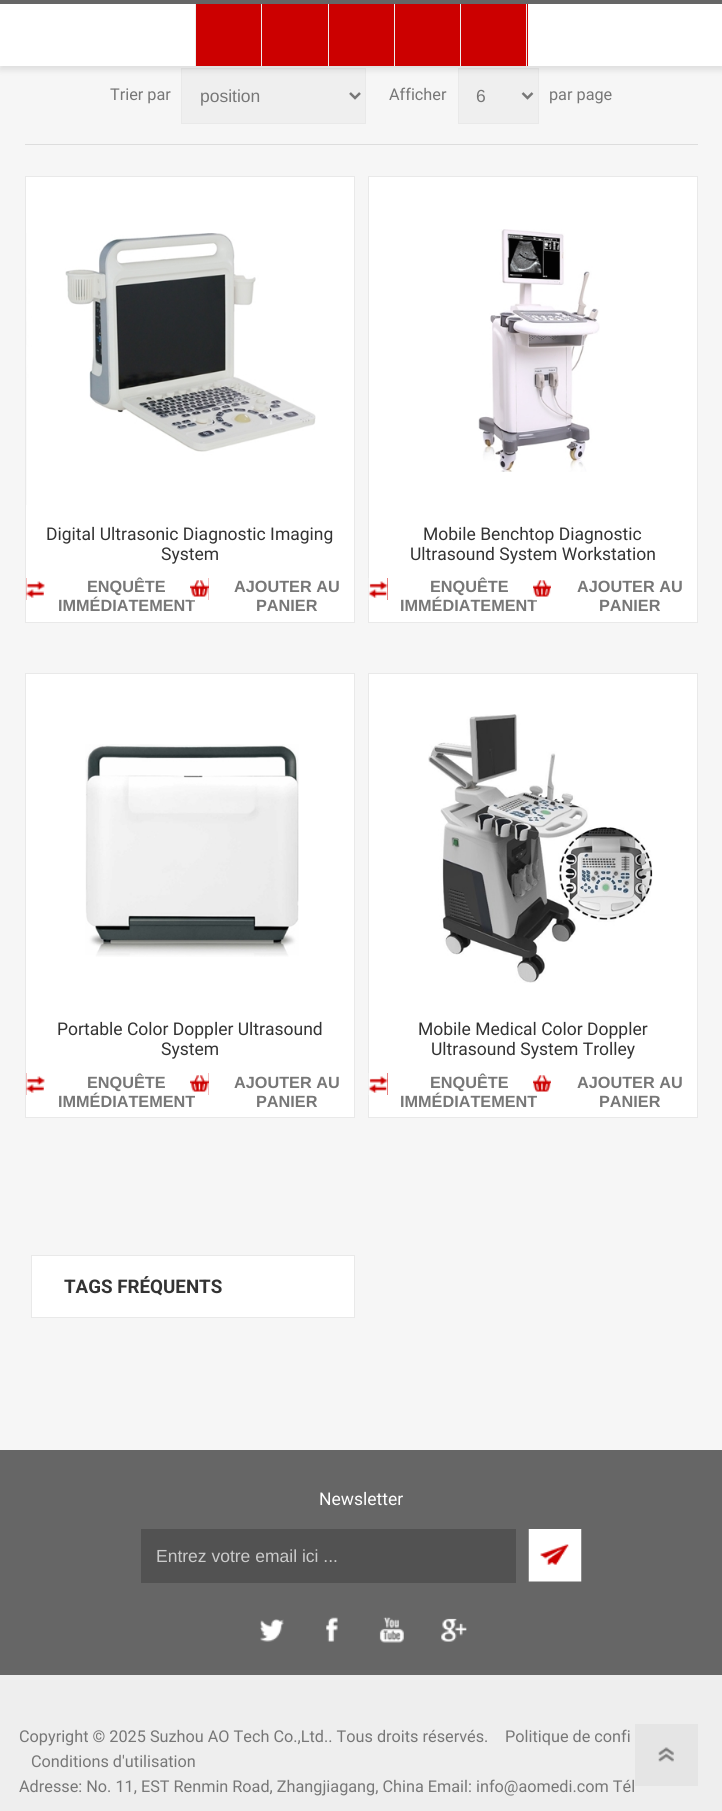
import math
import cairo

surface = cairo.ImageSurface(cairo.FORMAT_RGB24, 722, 1811)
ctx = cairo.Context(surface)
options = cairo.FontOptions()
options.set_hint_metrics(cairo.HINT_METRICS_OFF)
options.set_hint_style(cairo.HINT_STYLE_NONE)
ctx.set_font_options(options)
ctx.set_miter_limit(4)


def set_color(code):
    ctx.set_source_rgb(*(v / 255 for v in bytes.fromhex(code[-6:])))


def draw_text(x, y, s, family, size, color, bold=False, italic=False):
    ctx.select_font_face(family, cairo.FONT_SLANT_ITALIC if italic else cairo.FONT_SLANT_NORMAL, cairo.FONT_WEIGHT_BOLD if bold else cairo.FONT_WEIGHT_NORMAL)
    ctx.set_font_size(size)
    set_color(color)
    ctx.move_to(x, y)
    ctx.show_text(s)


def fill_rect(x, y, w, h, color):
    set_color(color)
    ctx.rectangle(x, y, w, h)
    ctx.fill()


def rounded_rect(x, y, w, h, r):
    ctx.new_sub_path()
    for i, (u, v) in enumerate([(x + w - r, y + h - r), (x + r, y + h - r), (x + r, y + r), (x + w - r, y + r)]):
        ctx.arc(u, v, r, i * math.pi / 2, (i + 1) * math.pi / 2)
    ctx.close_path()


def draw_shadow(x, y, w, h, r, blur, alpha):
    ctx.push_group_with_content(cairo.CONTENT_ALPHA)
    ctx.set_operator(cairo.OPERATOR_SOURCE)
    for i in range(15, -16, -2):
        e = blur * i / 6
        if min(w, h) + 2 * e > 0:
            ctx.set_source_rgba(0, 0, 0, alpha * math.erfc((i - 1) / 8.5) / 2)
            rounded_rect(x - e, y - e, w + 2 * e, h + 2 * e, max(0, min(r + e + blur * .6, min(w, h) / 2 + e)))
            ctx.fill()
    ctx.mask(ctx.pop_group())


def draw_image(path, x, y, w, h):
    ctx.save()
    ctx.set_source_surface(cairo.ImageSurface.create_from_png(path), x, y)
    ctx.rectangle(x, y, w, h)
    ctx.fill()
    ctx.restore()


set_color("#f6f6f6")
ctx.paint()
set_color("#efefef")
ctx.rectangle(181.5, 68.5, 184, 55)
ctx.fill_preserve()
set_color("#e9e9e9")
ctx.set_line_width(1)
ctx.stroke()
set_color("#efefef")
ctx.rectangle(458.5, 68.5, 80, 55)
ctx.fill_preserve()
set_color("#e9e9e9")
ctx.stroke()
set_color("#000000")
draw_shadow(0, 4, 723, 66, 0, 3, 0.1)
fill_rect(0, 4, 722, 62, "#ffffff")
fill_rect(0, 0, 722, 4, "#666666")
fill_rect(196, 4, 132, 62, "#cc0000")
fill_rect(261, 4, 1, 62, "#eeeeee")
fill_rect(195, 4, 1, 62, "#eeeeee")
fill_rect(328, 4, 1, 62, "#eeeeee")
fill_rect(329, 4, 65, 62, "#cc0000")
fill_rect(394, 4, 1, 62, "#eeeeee")
fill_rect(395, 4, 65, 62, "#cc0000")
fill_rect(460, 4, 1, 62, "#eeeeee")
fill_rect(461, 4, 67, 62, "#cc0000")
fill_rect(526, 4, 1, 62, "#eeeeee")
fill_rect(25, 144, 673, 1, "#dddddd")
draw_text(110, 100, "Trier par", "Roboto", 16.25, "#777777")
ctx.new_path()
ctx.move_to(350, 93)
ctx.line_to(355, 98)
ctx.line_to(360, 93)
ctx.set_line_width(2.5)
ctx.stroke()
draw_text(200, 102, "position", "Liberation Sans", 17.5, "#777777")
draw_text(389, 100, "Afficher", "Roboto", 16.25, "#777777")
ctx.new_path()
ctx.move_to(522.5, 93)
ctx.line_to(527.5, 98)
ctx.line_to(532.5, 93)
ctx.stroke()
draw_text(476, 102, "6", "Liberation Sans", 17.5, "#777777")
draw_text(549, 100, "par page", "Roboto", 16.25, "#777777")
set_color("#ffffff")
ctx.rectangle(25.5, 176.5, 329, 446)
ctx.fill_preserve()
set_color("#e9e9e9")
ctx.set_line_width(1)
ctx.stroke()
draw_image("assets/img1.png", 26, 233, 290, 272)
draw_text(46, 540, "Digital Ultrasonic Diagnostic Imaging", "Roboto", 17.5, "#333333")
draw_text(161, 560, "System", "Roboto", 17.5, "#333333")
fill_rect(26, 578, 19, 22, "#cc0000")
draw_image("assets/img2.png", 26, 578, 19, 22)
draw_text(87, 592, "ENQUÊTE", "Liberation Sans", 16.25, "#777777", bold=True)
draw_text(58, 611, "IMMÉDIATEMENT", "Liberation Sans", 16.25, "#777777", bold=True)
fill_rect(190, 578, 19, 22, "#cc0000")
draw_image("assets/img3.png", 190, 578, 19, 23)
draw_text(234, 592, "AJOUTER AU", "Liberation Sans", 16.25, "#777777", bold=True)
draw_text(256, 611, "PANIER", "Liberation Sans", 16.25, "#777777", bold=True)
set_color("#ffffff")
ctx.rectangle(368.5, 176.5, 329, 446)
ctx.fill_preserve()
set_color("#e9e9e9")
ctx.stroke()
draw_image("assets/img4.png", 478, 229, 122, 243)
draw_text(423, 540, "Mobile Benchtop Diagnostic", "Roboto", 17.5, "#333333")
draw_text(410, 560, "Ultrasound System Workstation", "Roboto", 17.5, "#333333")
fill_rect(369, 578, 19, 22, "#cc0000")
draw_image("assets/img5.png", 368, 578, 20, 22)
draw_text(430, 592, "ENQUÊTE", "Liberation Sans", 16.25, "#777777", bold=True)
draw_text(400, 611, "IMMÉDIATEMENT", "Liberation Sans", 16.25, "#777777", bold=True)
fill_rect(533, 580, 18, 17, "#cc0000")
draw_image("assets/img6.png", 532, 578, 19, 23)
draw_text(577, 592, "AJOUTER AU", "Liberation Sans", 16.25, "#777777", bold=True)
draw_text(599, 611, "PANIER", "Liberation Sans", 16.25, "#777777", bold=True)
set_color("#ffffff")
ctx.rectangle(25.5, 673.5, 329, 444)
ctx.fill_preserve()
set_color("#e9e9e9")
ctx.stroke()
draw_image("assets/img7.png", 85, 744, 214, 213)
draw_text(57, 1035, "Portable Color Doppler Ultrasound", "Roboto", 17.5, "#333333")
draw_text(161, 1055, "System", "Roboto", 17.5, "#333333")
fill_rect(26, 1073, 19, 22, "#cc0000")
draw_image("assets/img2.png", 26, 1073, 19, 22)
draw_text(87, 1088, "ENQUÊTE", "Liberation Sans", 16.25, "#777777", bold=True)
draw_text(58, 1107, "IMMÉDIATEMENT", "Liberation Sans", 16.25, "#777777", bold=True)
fill_rect(190, 1073, 19, 22, "#cc0000")
draw_image("assets/img8.png", 190, 1073, 19, 23)
draw_text(234, 1088, "AJOUTER AU", "Liberation Sans", 16.25, "#777777", bold=True)
draw_text(256, 1107, "PANIER", "Liberation Sans", 16.25, "#777777", bold=True)
set_color("#ffffff")
ctx.rectangle(368.5, 673.5, 329, 444)
ctx.fill_preserve()
set_color("#e9e9e9")
ctx.stroke()
draw_image("assets/img9.png", 428, 714, 225, 269)
draw_text(418, 1035, "Mobile Medical Color Doppler", "Roboto", 17.5, "#333333")
draw_text(431, 1055, "Ultrasound System Trolley", "Roboto", 17.5, "#333333")
fill_rect(369, 1073, 19, 22, "#cc0000")
draw_image("assets/img5.png", 368, 1073, 20, 22)
draw_text(430, 1088, "ENQUÊTE", "Liberation Sans", 16.25, "#777777", bold=True)
draw_text(400, 1107, "IMMÉDIATEMENT", "Liberation Sans", 16.25, "#777777", bold=True)
fill_rect(533, 1075, 18, 17, "#cc0000")
draw_image("assets/img10.png", 533, 1073, 18, 23)
draw_text(577, 1088, "AJOUTER AU", "Liberation Sans", 16.25, "#777777", bold=True)
draw_text(599, 1107, "PANIER", "Liberation Sans", 16.25, "#777777", bold=True)
set_color("#ffffff")
ctx.rectangle(31.5, 1255.5, 323, 62)
ctx.fill_preserve()
set_color("#e9e9e9")
ctx.stroke()
draw_text(64, 1293, "TAGS FRÉQUENTS", "Roboto", 18.75, "#333333", bold=True)
fill_rect(0, 1450, 722, 225, "#666666")
draw_text(319, 1505, "Newsletter", "Roboto", 17.5, "#ffffff")
fill_rect(141, 1529, 375, 54, "#525252")
draw_text(156, 1562, "Entrez votre email ici ...", "Liberation Sans", 17.5, "#cbcbcb")
fill_rect(540, 1544, 29, 21, "#cc0000")
draw_image("assets/img11.png", 528, 1529, 54, 53)
draw_image("assets/img12.png", 260, 1619, 24, 23)
draw_image("assets/img13.png", 326, 1617, 12, 25)
draw_image("assets/img14.png", 379, 1617, 25, 26)
draw_image("assets/img15.png", 441, 1618, 26, 24)
fill_rect(0, 1675, 722, 136, "#eeeeee")
draw_text(19, 1742, "Copyright © 2025 Suzhou AO Tech Co.,Ltd.. Tous droits réservés.", "Roboto", 16.25, "#777777")
draw_text(505, 1742, "Politique de confi", "Roboto", 16.25, "#777777")
draw_text(31, 1767, "Conditions d'utilisation", "Roboto", 16.25, "#777777")
draw_text(19, 1792, "Adresse: No. 11, EST Renmin Road, Zhangjiagang, China Email: info@aomedi.com Tél", "Roboto", 16.25, "#777777")
ctx.set_source_rgba(0.882, 0.882, 0.882, 0.75)
ctx.rectangle(635, 1724, 63, 62)
ctx.fill()
draw_image("assets/img16.png", 658, 1747, 16, 15)
surface.write_to_png("output.png")
